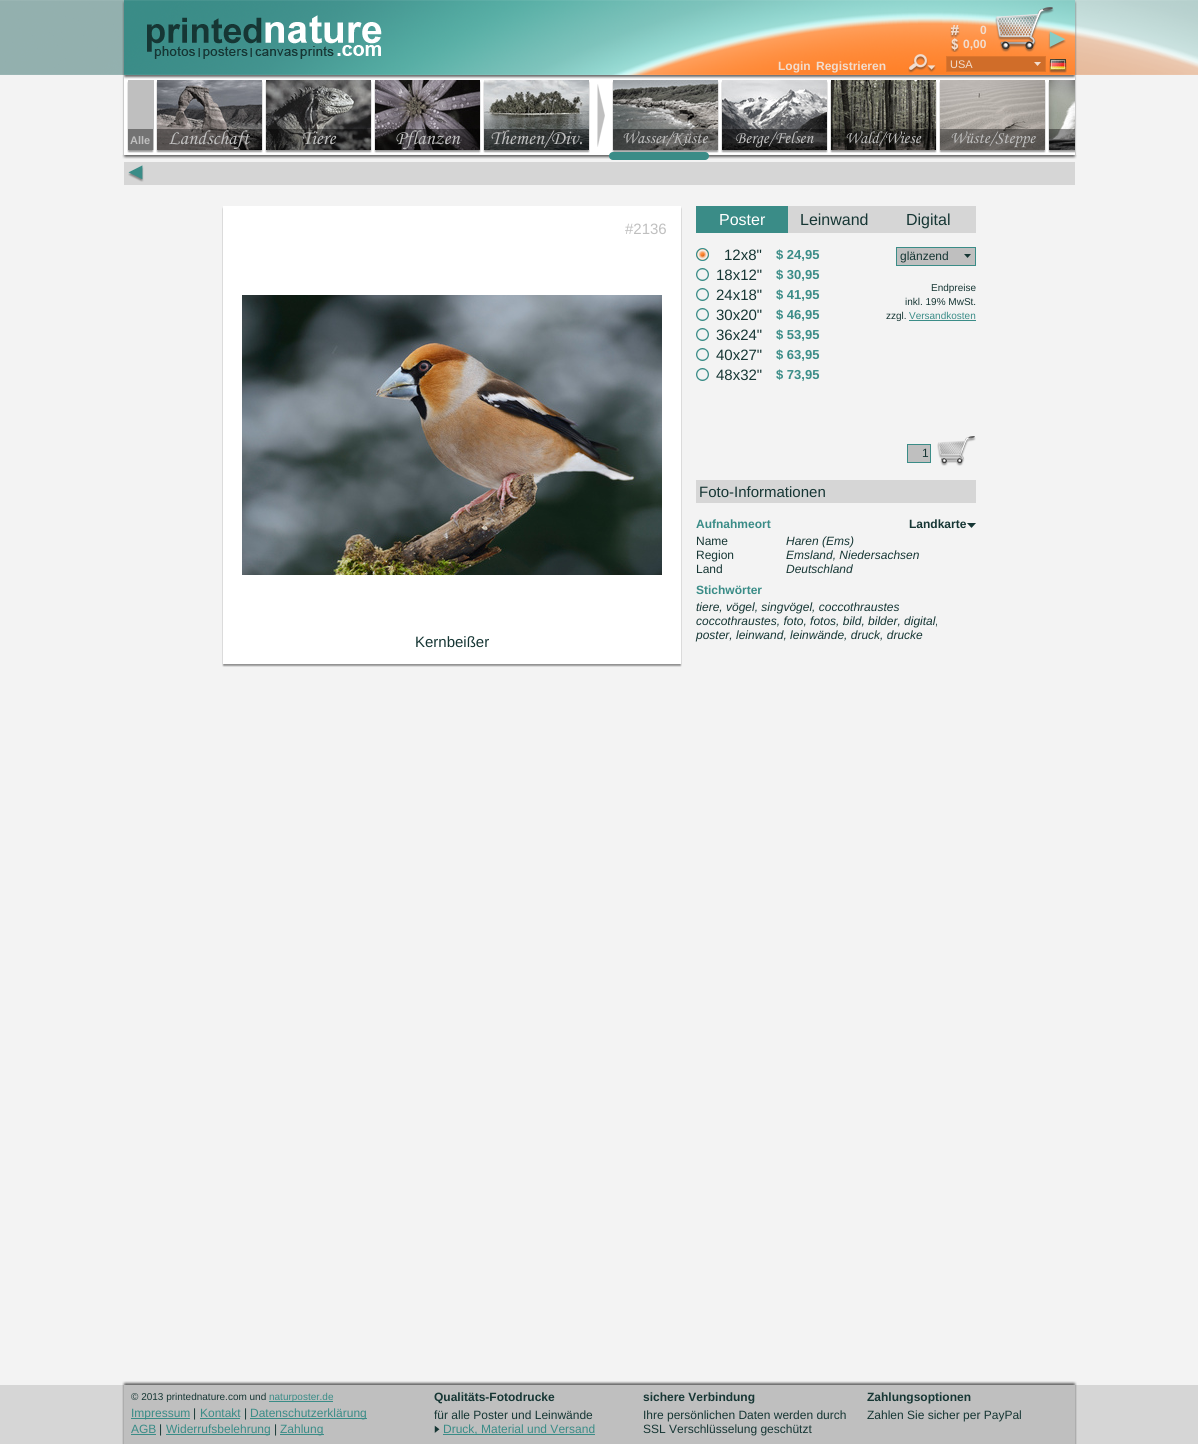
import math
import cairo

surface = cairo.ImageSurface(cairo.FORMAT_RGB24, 1198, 1444)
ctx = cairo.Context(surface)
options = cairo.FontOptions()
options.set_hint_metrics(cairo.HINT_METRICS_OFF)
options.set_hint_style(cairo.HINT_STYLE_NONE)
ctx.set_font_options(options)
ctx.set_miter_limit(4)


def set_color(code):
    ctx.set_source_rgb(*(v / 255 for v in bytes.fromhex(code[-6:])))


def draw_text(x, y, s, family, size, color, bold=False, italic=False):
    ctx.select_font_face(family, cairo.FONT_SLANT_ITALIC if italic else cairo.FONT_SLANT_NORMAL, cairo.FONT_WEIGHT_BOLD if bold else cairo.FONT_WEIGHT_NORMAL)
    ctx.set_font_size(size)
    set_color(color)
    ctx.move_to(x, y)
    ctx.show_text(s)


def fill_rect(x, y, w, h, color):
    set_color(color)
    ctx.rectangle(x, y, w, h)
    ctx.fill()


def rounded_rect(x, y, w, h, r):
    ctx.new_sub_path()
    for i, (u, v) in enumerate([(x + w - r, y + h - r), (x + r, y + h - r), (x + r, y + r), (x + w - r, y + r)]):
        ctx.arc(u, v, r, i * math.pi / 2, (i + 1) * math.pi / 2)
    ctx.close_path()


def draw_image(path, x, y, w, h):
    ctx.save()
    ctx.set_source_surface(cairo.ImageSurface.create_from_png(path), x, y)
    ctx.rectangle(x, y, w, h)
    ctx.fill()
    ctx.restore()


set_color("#f3f3f3")
ctx.paint()
draw_image("assets/img1.png", 0, 0, 1198, 75)
fill_rect(122, 75, 955, 80, "#ffffff")
draw_image("assets/img11.png", 122, 75, 955, 84)
draw_image("assets/img2.png", 122, 0, 955, 79)
draw_image("assets/img3.png", 147, 15, 235, 44)
draw_image("assets/img4.png", 950, 25, 10, 13)
draw_text(980, 34, "0", "Liberation Sans", 12, "#f2ddce", bold=True)
draw_image("assets/img5.png", 950, 38, 9, 14)
draw_text(963, 48, "0,00", "Liberation Sans", 12, "#f2ddce", bold=True)
draw_image("assets/img6.png", 995, 7, 59, 45)
draw_image("assets/img7.png", 1048, 31, 18, 19)
draw_text(778, 70, "Login", "Liberation Sans", 12, "#f2ddce", bold=True)
draw_text(816, 70, "Registrieren", "Liberation Sans", 12, "#f2ddce", bold=True)
draw_image("assets/img8.png", 908, 54, 28, 19)
set_color("#d06d29")
ctx.rectangle(946.5, 56.5, 99, 15)
ctx.fill_preserve()
set_color("#de762d")
ctx.set_line_width(1)
ctx.stroke()
draw_text(950, 68, "USA", "Liberation Sans", 11, "#f2ddce")
draw_image("assets/img9.png", 1034, 62, 7, 4)
draw_image("assets/img10.png", 1049, 59, 18, 14)
draw_image("assets/img12.png", 127, 81, 27, 72)
fill_rect(128, 80, 26, 70, "#bfbfbf")
fill_rect(128, 129, 25, 21, "#737373")
draw_text(130, 144, "Alle", "Liberation Sans", 11, "#bfbfbf", bold=True)
draw_image("assets/img13.png", 156, 81, 107, 72)
draw_image("assets/img14.png", 157, 80, 105, 70)
ctx.set_source_rgba(0, 0, 0, 0.4)
ctx.rectangle(157, 129, 105, 21)
ctx.fill()
draw_text(168, 144, "Landschaft", "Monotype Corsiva", 20, "#bfbfbf", italic=True)
draw_image("assets/img13.png", 265, 81, 107, 72)
draw_image("assets/img15.png", 266, 80, 105, 70)
ctx.set_source_rgba(0, 0, 0, 0.4)
ctx.rectangle(266, 129, 105, 21)
ctx.fill()
draw_text(301, 144, "Tiere", "Monotype Corsiva", 20, "#bfbfbf", italic=True)
draw_image("assets/img13.png", 374, 81, 107, 72)
draw_image("assets/img16.png", 375, 80, 105, 70)
ctx.set_source_rgba(0, 0, 0, 0.4)
ctx.rectangle(375, 129, 105, 21)
ctx.fill()
draw_text(395, 144, "Pflanzen", "Monotype Corsiva", 20, "#bfbfbf", italic=True)
draw_image("assets/img13.png", 483, 81, 107, 72)
draw_image("assets/img17.png", 484, 80, 105, 70)
ctx.set_source_rgba(0, 0, 0, 0.4)
ctx.rectangle(484, 129, 105, 21)
ctx.fill()
draw_text(490, 144, "Themen/Div.", "Monotype Corsiva", 20, "#bfbfbf", italic=True)
draw_image("assets/img18.png", 597, 84, 8, 63)
draw_image("assets/img13.png", 612, 81, 107, 72)
draw_image("assets/img19.png", 613, 80, 105, 70)
ctx.set_source_rgba(0, 0, 0, 0.4)
ctx.rectangle(613, 129, 105, 21)
ctx.fill()
draw_text(622, 143, "Wasser/Küste", "Monotype Corsiva", 17, "#bfbfbf", italic=True)
draw_image("assets/img13.png", 721, 81, 107, 72)
draw_image("assets/img20.png", 722, 80, 105, 70)
ctx.set_source_rgba(0, 0, 0, 0.4)
ctx.rectangle(722, 129, 105, 21)
ctx.fill()
draw_text(735, 143, "Berge/Felsen", "Monotype Corsiva", 17, "#bfbfbf", italic=True)
draw_image("assets/img13.png", 830, 81, 107, 72)
draw_image("assets/img21.png", 831, 80, 105, 70)
ctx.set_source_rgba(0, 0, 0, 0.4)
ctx.rectangle(831, 129, 105, 21)
ctx.fill()
draw_text(845, 143, "Wald/Wiese", "Monotype Corsiva", 17, "#bfbfbf", italic=True)
draw_image("assets/img13.png", 939, 81, 107, 72)
draw_image("assets/img22.png", 940, 80, 105, 70)
ctx.set_source_rgba(0, 0, 0, 0.4)
ctx.rectangle(940, 129, 105, 21)
ctx.fill()
draw_text(950, 143, "Wüste/Steppe", "Monotype Corsiva", 17, "#bfbfbf", italic=True)
draw_image("assets/img23.png", 1048, 81, 27, 72)
draw_image("assets/img24.png", 1049, 80, 26, 70)
ctx.set_source_rgba(0, 0, 0, 0.4)
ctx.rectangle(1049, 129, 26, 21)
ctx.fill()
set_color("#3a8c87")
rounded_rect(609, 152, 100, 8, 4)
ctx.fill()
fill_rect(124, 162, 951, 23, "#d6d6d6")
draw_image("assets/img25.png", 128, 165, 16, 17)
draw_image("assets/img26.png", 222, 207, 460, 460)
fill_rect(223, 206, 458, 458, "#ffffff")
draw_text(625, 234, "#2136", "Liberation Sans", 15, "#bfbfbf")
draw_image("assets/img27.png", 242, 295, 420, 280)
draw_text(415, 647, "Kernbeißer", "Liberation Sans", 15, "#163634")
fill_rect(788, 206, 188, 27, "#d6d6d6")
fill_rect(696, 206, 92, 27, "#3a8c87")
draw_text(719, 225, "Poster", "Liberation Sans", 16, "#ffffff")
draw_text(800, 225, "Leinwand", "Liberation Sans", 16, "#163634")
draw_text(906, 225, "Digital", "Liberation Sans", 16, "#163634")
draw_image("assets/img28.png", 696, 248, 13, 13)
draw_image("assets/img29.png", 696, 268, 13, 13)
draw_image("assets/img29.png", 696, 288, 13, 13)
draw_image("assets/img29.png", 696, 308, 13, 13)
draw_image("assets/img29.png", 696, 328, 13, 13)
draw_image("assets/img29.png", 696, 348, 13, 13)
draw_image("assets/img29.png", 696, 368, 13, 13)
draw_text(724, 260, "12x8\"", "Liberation Sans", 15, "#163634")
draw_text(716, 280, "18x12\"", "Liberation Sans", 15, "#163634")
draw_text(716, 300, "24x18\"", "Liberation Sans", 15, "#163634")
draw_text(716, 320, "30x20\"", "Liberation Sans", 15, "#163634")
draw_text(716, 340, "36x24\"", "Liberation Sans", 15, "#163634")
draw_text(716, 360, "40x27\"", "Liberation Sans", 15, "#163634")
draw_text(716, 380, "48x32\"", "Liberation Sans", 15, "#163634")
draw_text(776, 259, "$ 24,95", "Liberation Sans", 13, "#3a8c87", bold=True)
draw_text(776, 279, "$ 30,95", "Liberation Sans", 13, "#3a8c87", bold=True)
draw_text(776, 299, "$ 41,95", "Liberation Sans", 13, "#3a8c87", bold=True)
draw_text(776, 319, "$ 46,95", "Liberation Sans", 13, "#3a8c87", bold=True)
draw_text(776, 339, "$ 53,95", "Liberation Sans", 13, "#3a8c87", bold=True)
draw_text(776, 359, "$ 63,95", "Liberation Sans", 13, "#3a8c87", bold=True)
draw_text(776, 379, "$ 73,95", "Liberation Sans", 13, "#3a8c87", bold=True)
set_color("#bfbfbf")
ctx.rectangle(896.5, 247.5, 79, 18)
ctx.fill_preserve()
set_color("#3a8c87")
ctx.stroke()
draw_text(900, 260, "glänzend", "Liberation Sans", 12, "#163634")
draw_image("assets/img30.png", 964, 254, 7, 4)
draw_text(931, 291, "Endpreise", "Liberation Sans", 10, "#163634")
draw_text(905, 305, "inkl. 19% MwSt.", "Liberation Sans", 10, "#163634")
draw_text(886, 319, "zzgl.", "Liberation Sans", 10, "#163634")
draw_text(909, 319, "Versandkosten", "Liberation Sans", 10, "#3a8c87")
fill_rect(909, 320, 67, 1, "#3a8c87")
set_color("#bfbfbf")
ctx.rectangle(907.5, 444.5, 23, 18)
ctx.fill_preserve()
set_color("#3a8c87")
ctx.stroke()
draw_text(922, 457, "1", "Liberation Sans", 12, "#163634")
draw_image("assets/img31.png", 937, 436, 39, 30)
fill_rect(696, 480, 280, 23, "#d6d6d6")
draw_text(699, 497, "Foto-Informationen", "Liberation Sans", 15, "#163634")
draw_text(696, 528, "Aufnahmeort", "Liberation Sans", 12, "#3a8c87", bold=True)
draw_text(909, 528, "Landkarte", "Liberation Sans", 12, "#163634", bold=True)
draw_image("assets/img32.png", 967, 523, 9, 5)
draw_text(696, 545, "Name", "Liberation Sans", 12, "#163634")
draw_text(786, 545, "Haren (Ems)", "Liberation Sans", 12, "#163634", italic=True)
draw_text(696, 559, "Region", "Liberation Sans", 12, "#163634")
draw_text(786, 559, "Emsland, Niedersachsen", "Liberation Sans", 12, "#163634", italic=True)
draw_text(696, 573, "Land", "Liberation Sans", 12, "#163634")
draw_text(786, 573, "Deutschland", "Liberation Sans", 12, "#163634", italic=True)
draw_text(696, 594, "Stichwörter", "Liberation Sans", 12, "#3a8c87", bold=True)
draw_text(696, 611, "tiere, vögel, singvögel, coccothraustes", "Liberation Sans", 12, "#163634", italic=True)
draw_text(696, 625, "coccothraustes, foto, fotos, bild, bilder, digital,", "Liberation Sans", 12, "#163634", italic=True)
draw_text(696, 639, "poster, leinwand, leinwände, druck, drucke", "Liberation Sans", 12, "#163634", italic=True)
fill_rect(0, 1385, 1198, 59, "#d6d6d6")
draw_image("assets/img33.png", 122, 1381, 955, 63)
ctx.save()
ctx.rectangle(131, 1390, 295, 13)
ctx.clip()
draw_text(131, 1400, "© 2013 printednature.com und", "Liberation Sans", 10, "#163634")
ctx.restore()
fill_rect(269, 1401, 64, 1, "#3a8c87")
draw_text(269, 1400, "naturposter.de", "Liberation Sans", 10, "#3a8c87")
fill_rect(131, 1418, 59, 1, "#3a8c87")
draw_text(131, 1417, "Impressum", "Liberation Sans", 12, "#3a8c87")
draw_text(193, 1417, "|", "Liberation Sans", 12, "#163634")
draw_text(200, 1417, "Kontakt", "Liberation Sans", 12, "#3a8c87")
fill_rect(200, 1418, 40, 1, "#3a8c87")
draw_text(244, 1417, "|", "Liberation Sans", 12, "#163634")
fill_rect(250, 1418, 117, 1, "#3a8c87")
draw_text(250, 1417, "Datenschutzerklärung", "Liberation Sans", 12, "#3a8c87")
draw_text(131, 1433, "AGB", "Liberation Sans", 12, "#3a8c87")
fill_rect(131, 1434, 25, 1, "#3a8c87")
draw_text(159, 1433, "|", "Liberation Sans", 12, "#163634")
fill_rect(166, 1434, 104, 1, "#3a8c87")
draw_text(166, 1433, "Widerrufsbelehrung", "Liberation Sans", 12, "#3a8c87")
draw_text(274, 1433, "|", "Liberation Sans", 12, "#163634")
fill_rect(280, 1434, 44, 1, "#3a8c87")
draw_text(280, 1433, "Zahlung", "Liberation Sans", 12, "#3a8c87")
draw_text(434, 1401, "Qualitäts-Fotodrucke", "Liberation Sans", 12, "#163634", bold=True)
draw_text(434, 1419, "für alle Poster und Leinwände", "Liberation Sans", 12, "#163634")
draw_image("assets/img34.png", 434, 1425, 6, 8)
fill_rect(443, 1434, 152, 1, "#3a8c87")
draw_text(443, 1433, "Druck, Material und Versand", "Liberation Sans", 12, "#3a8c87")
draw_text(643, 1401, "sichere Verbindung", "Liberation Sans", 12, "#163634", bold=True)
draw_text(643, 1419, "Ihre persönlichen Daten werden durch", "Liberation Sans", 12, "#163634")
draw_text(643, 1433, "SSL Verschlüsselung geschützt", "Liberation Sans", 12, "#163634")
draw_text(867, 1401, "Zahlungsoptionen", "Liberation Sans", 12, "#163634", bold=True)
draw_text(867, 1419, "Zahlen Sie sicher per PayPal", "Liberation Sans", 12, "#163634")
surface.write_to_png("output.png")
